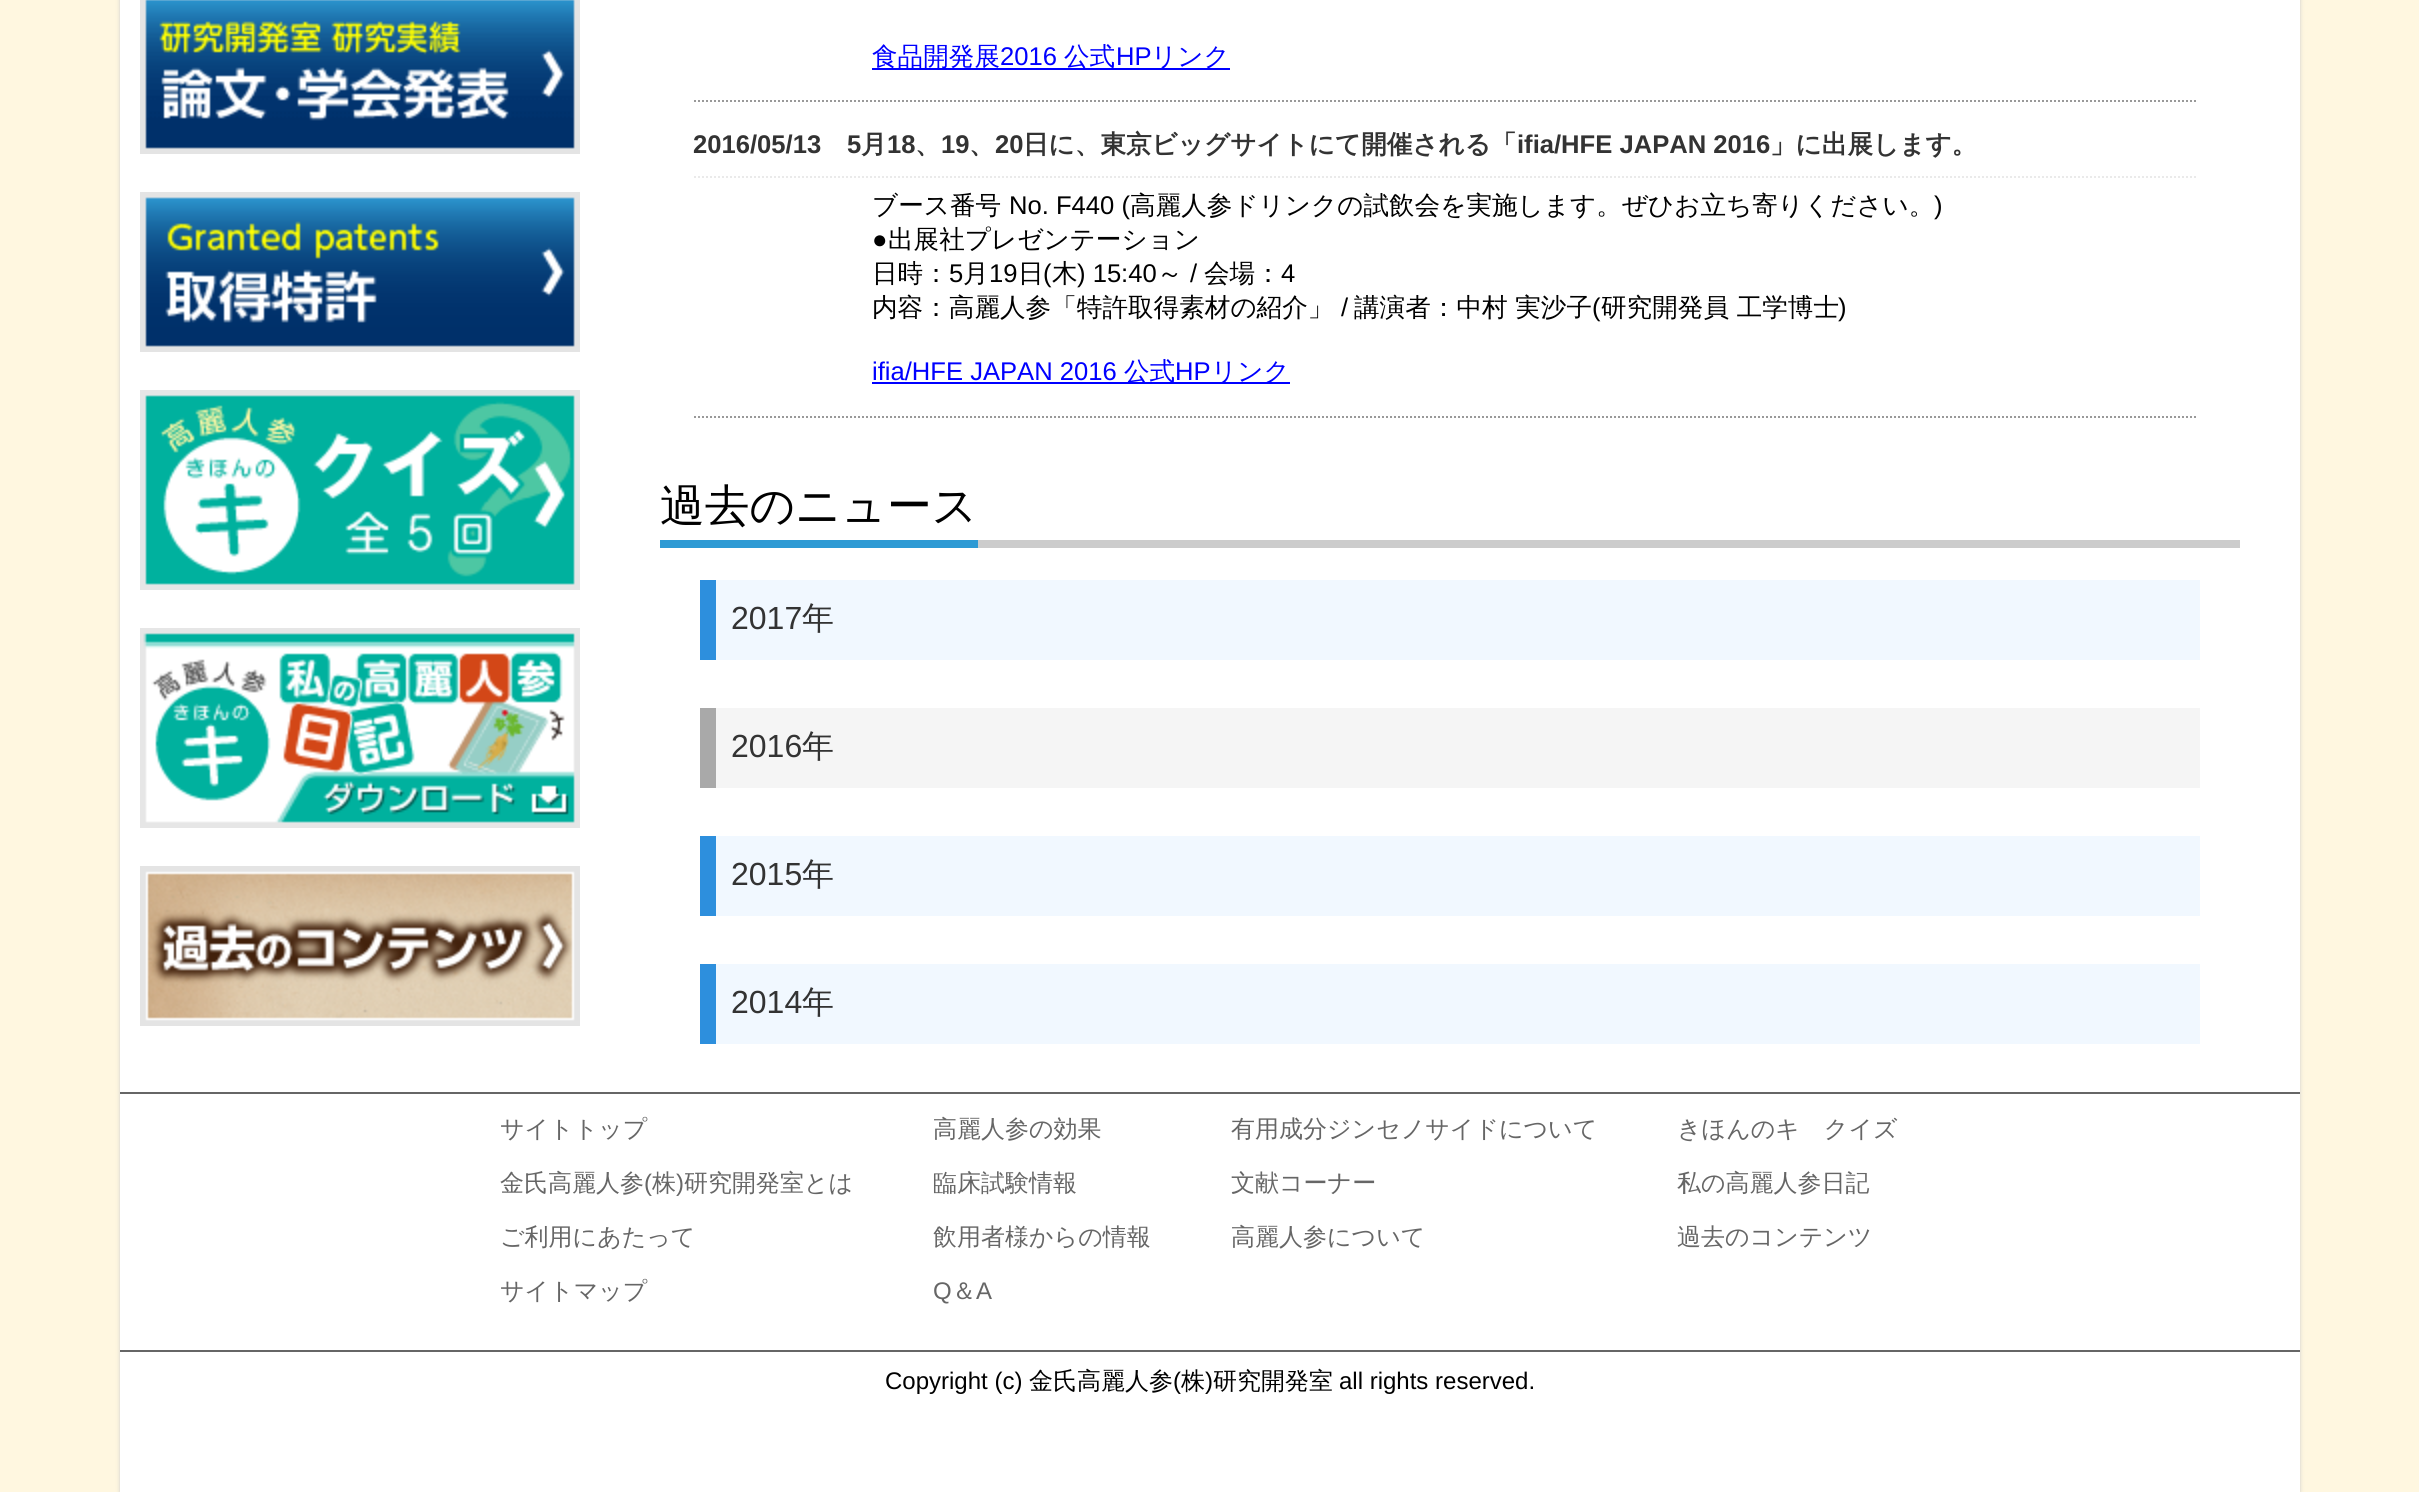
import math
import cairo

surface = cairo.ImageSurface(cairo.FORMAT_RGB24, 2419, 1492)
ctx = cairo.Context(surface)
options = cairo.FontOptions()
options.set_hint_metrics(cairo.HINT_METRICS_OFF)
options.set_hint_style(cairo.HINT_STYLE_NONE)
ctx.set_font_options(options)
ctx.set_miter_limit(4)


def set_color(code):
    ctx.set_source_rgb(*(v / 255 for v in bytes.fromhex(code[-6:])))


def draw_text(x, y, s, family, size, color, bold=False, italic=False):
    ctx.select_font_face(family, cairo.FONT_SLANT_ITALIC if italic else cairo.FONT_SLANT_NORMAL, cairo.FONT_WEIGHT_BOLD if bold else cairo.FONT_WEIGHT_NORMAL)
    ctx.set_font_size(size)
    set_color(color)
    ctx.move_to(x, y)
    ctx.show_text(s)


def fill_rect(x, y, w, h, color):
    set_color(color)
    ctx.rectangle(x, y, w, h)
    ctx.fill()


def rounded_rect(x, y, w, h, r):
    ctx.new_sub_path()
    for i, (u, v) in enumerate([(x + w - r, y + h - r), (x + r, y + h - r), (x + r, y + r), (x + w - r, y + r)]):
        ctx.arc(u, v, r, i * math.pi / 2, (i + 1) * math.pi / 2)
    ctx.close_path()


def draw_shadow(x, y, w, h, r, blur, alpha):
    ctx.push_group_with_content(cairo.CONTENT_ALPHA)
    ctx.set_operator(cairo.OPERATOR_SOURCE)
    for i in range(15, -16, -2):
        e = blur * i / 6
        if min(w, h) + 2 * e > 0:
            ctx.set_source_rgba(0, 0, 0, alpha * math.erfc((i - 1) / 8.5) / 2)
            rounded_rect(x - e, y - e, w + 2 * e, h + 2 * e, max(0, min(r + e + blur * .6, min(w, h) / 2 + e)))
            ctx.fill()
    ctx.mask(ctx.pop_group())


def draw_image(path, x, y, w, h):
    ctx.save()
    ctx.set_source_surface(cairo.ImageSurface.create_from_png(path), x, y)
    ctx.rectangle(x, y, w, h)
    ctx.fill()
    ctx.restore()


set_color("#fff7e0")
ctx.paint()
set_color("#cccccc")
draw_shadow(120, -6, 2180, 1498, 0, 2, 1)
fill_rect(120, 0, 2180, 1492, "#ffffff")
draw_image("assets/img1.png", 140, 0, 440, 154)
draw_image("assets/img2.png", 140, 192, 440, 160)
draw_image("assets/img3.png", 140, 390, 440, 200)
draw_image("assets/img4.png", 140, 628, 440, 200)
draw_image("assets/img5.png", 140, 866, 440, 160)
ctx.new_path()
ctx.move_to(694, 101)
ctx.line_to(2196, 101)
set_color("#999999")
ctx.set_dash([2, 2])
ctx.stroke()
fill_rect(872, 68, 358, 2, "#0000ff")
draw_text(872, 65, "食品開発展", "WenQuanYi Zen Hei Medium", 25.6, "#0000ff")
draw_text(1000, 65, "2016", "Liberation Sans", 25.6, "#0000ff")
draw_text(1064, 65, "公式", "WenQuanYi Zen Hei Medium", 25.6, "#0000ff")
draw_text(1116, 65, "HP", "Liberation Sans", 25.6, "#0000ff")
draw_text(1151, 65, "リンク", "WenQuanYi Zen Hei Medium", 25.6, "#0000ff")
ctx.new_path()
ctx.move_to(694, 177)
ctx.line_to(2196, 177)
set_color("#eaeaea")
ctx.stroke()
draw_text(693, 153, "2016/05/13", "Liberation Sans", 25.6, "#333333", bold=True)
draw_text(847, 153, "5", "Liberation Sans", 25.6, "#333333", bold=True)
draw_text(861, 153, "月", "WenQuanYi Zen Hei", 25.6, "#333333", bold=True)
draw_text(887, 153, "18", "Liberation Sans", 25.6, "#333333", bold=True)
draw_text(915, 153, "、", "WenQuanYi Zen Hei", 25.6, "#333333", bold=True)
draw_text(941, 153, "19", "Liberation Sans", 25.6, "#333333", bold=True)
draw_text(969, 153, "、", "WenQuanYi Zen Hei", 25.6, "#333333", bold=True)
draw_text(995, 153, "20", "Liberation Sans", 25.6, "#333333", bold=True)
draw_text(1023, 153, "日に、東京ビッグサイトにて開催される「", "WenQuanYi Zen Hei", 25.6, "#333333", bold=True)
draw_text(1517, 153, "ifia/HFE JAPAN 2016", "Liberation Sans", 25.6, "#333333", bold=True)
draw_text(1770, 153, "」に出展します。", "WenQuanYi Zen Hei", 25.6, "#333333", bold=True)
ctx.new_path()
ctx.move_to(694, 417)
ctx.line_to(2196, 417)
set_color("#999999")
ctx.stroke()
draw_text(872, 214, "ブース番号", "WenQuanYi Zen Hei Medium", 25.6, "#000000")
draw_text(1009, 214, "No. F440 (", "Liberation Sans", 25.6, "#000000")
draw_text(1130, 214, "高麗人参ドリンクの試飲会を実施します。ぜひお立ち寄りください。", "WenQuanYi Zen Hei Medium", 25.6, "#000000")
draw_text(1934, 214, ")", "Liberation Sans", 25.6, "#000000")
draw_text(872, 248, "●", "Liberation Sans", 25.6, "#000000")
draw_text(888, 248, "出展社プレゼンテーション", "WenQuanYi Zen Hei Medium", 25.6, "#000000")
draw_text(872, 282, "日時：", "WenQuanYi Zen Hei Medium", 25.6, "#000000")
draw_text(949, 282, "5", "Liberation Sans", 25.6, "#000000")
draw_text(963, 282, "月", "WenQuanYi Zen Hei Medium", 25.6, "#000000")
draw_text(989, 282, "19", "Liberation Sans", 25.6, "#000000")
draw_text(1018, 282, "日", "WenQuanYi Zen Hei Medium", 25.6, "#000000")
draw_text(1043, 282, "(", "Liberation Sans", 25.6, "#000000")
draw_text(1052, 282, "木", "WenQuanYi Zen Hei Medium", 25.6, "#000000")
draw_text(1077, 282, ") 15:40", "Liberation Sans", 25.6, "#000000")
draw_text(1157, 282, "～", "WenQuanYi Zen Hei Medium", 25.6, "#000000")
draw_text(1190, 282, "/", "Liberation Sans", 25.6, "#000000")
draw_text(1204, 282, "会場：", "WenQuanYi Zen Hei Medium", 25.6, "#000000")
draw_text(1281, 282, "4", "Liberation Sans", 25.6, "#000000")
draw_text(872, 316, "内容：高麗人参「特許取得素材の紹介」", "WenQuanYi Zen Hei Medium", 25.6, "#000000")
draw_text(1341, 316, "/", "Liberation Sans", 25.6, "#000000")
draw_text(1354, 316, "講演者：中村 実沙子", "WenQuanYi Zen Hei Medium", 25.6, "#000000")
draw_text(1592, 316, "(", "Liberation Sans", 25.6, "#000000")
draw_text(1601, 316, "研究開発員 工学博士", "WenQuanYi Zen Hei Medium", 25.6, "#000000")
draw_text(1838, 316, ")", "Liberation Sans", 25.6, "#000000")
draw_text(872, 380, "ifia/HFE JAPAN 2016", "Liberation Sans", 25.6, "#0000ff")
fill_rect(872, 382, 418, 2, "#0000ff")
draw_text(1124, 380, "公式", "WenQuanYi Zen Hei Medium", 25.6, "#0000ff")
draw_text(1175, 380, "HP", "Liberation Sans", 25.6, "#0000ff")
draw_text(1211, 380, "リンク", "WenQuanYi Zen Hei Medium", 25.6, "#0000ff")
draw_text(660, 521, "過去のニュース", "WenQuanYi Zen Hei Medium", 44.75, "#000000")
fill_rect(660, 540, 318, 8, "#2e9ad4")
fill_rect(978, 540, 1262, 8, "#cccccc")
fill_rect(716, 580, 1484, 80, "#f1f8ff")
fill_rect(700, 580, 16, 80, "#2d8fdd")
draw_text(731, 629, "2017", "Liberation Sans", 32, "#333333")
draw_text(802, 629, "年", "WenQuanYi Zen Hei Medium", 32, "#333333")
fill_rect(716, 708, 1484, 80, "#f5f5f5")
fill_rect(700, 708, 16, 80, "#a9a9a9")
draw_text(731, 757, "2016", "Liberation Sans", 32, "#333333")
draw_text(802, 757, "年", "WenQuanYi Zen Hei Medium", 32, "#333333")
fill_rect(716, 836, 1484, 80, "#f1f8ff")
fill_rect(700, 836, 16, 80, "#2d8fdd")
draw_text(731, 885, "2015", "Liberation Sans", 32, "#333333")
draw_text(802, 885, "年", "WenQuanYi Zen Hei Medium", 32, "#333333")
fill_rect(716, 964, 1484, 80, "#f1f8ff")
fill_rect(700, 964, 16, 80, "#2d8fdd")
draw_text(731, 1013, "2014", "Liberation Sans", 32, "#333333")
draw_text(802, 1013, "年", "WenQuanYi Zen Hei Medium", 32, "#333333")
fill_rect(120, 1092, 2180, 2, "#666666")
draw_text(500, 1137, "サイトトップ", "WenQuanYi Zen Hei Medium", 24, "#666666")
draw_text(500, 1191, "金氏高麗人参", "WenQuanYi Zen Hei Medium", 24, "#666666")
draw_text(644, 1191, "(", "Liberation Sans", 24, "#666666")
draw_text(652, 1191, "株", "WenQuanYi Zen Hei Medium", 24, "#666666")
draw_text(676, 1191, ")", "Liberation Sans", 24, "#666666")
draw_text(684, 1191, "研究開発室とは", "WenQuanYi Zen Hei Medium", 24, "#666666")
draw_text(500, 1245, "ご利用にあたって", "WenQuanYi Zen Hei Medium", 24, "#666666")
draw_text(500, 1299, "サイトマップ", "WenQuanYi Zen Hei Medium", 24, "#666666")
draw_text(933, 1137, "高麗人参の効果", "WenQuanYi Zen Hei Medium", 24, "#666666")
draw_text(933, 1191, "臨床試験情報", "WenQuanYi Zen Hei Medium", 24, "#666666")
draw_text(933, 1245, "飲用者様からの情報", "WenQuanYi Zen Hei Medium", 24, "#666666")
draw_text(933, 1299, "Q", "Liberation Sans", 24, "#666666")
draw_text(952, 1299, "＆", "WenQuanYi Zen Hei Medium", 24, "#666666")
draw_text(976, 1299, "A", "Liberation Sans", 24, "#666666")
draw_text(1231, 1137, "有用成分ジンセノサイドについて", "WenQuanYi Zen Hei Medium", 24, "#666666")
draw_text(1231, 1191, "文献コーナー", "WenQuanYi Zen Hei Medium", 24, "#666666")
draw_text(1231, 1245, "高麗人参について", "WenQuanYi Zen Hei Medium", 24, "#666666")
draw_text(1677, 1137, "きほんのキ　クイズ", "WenQuanYi Zen Hei Medium", 24, "#666666")
draw_text(1677, 1191, "私の高麗人参日記", "WenQuanYi Zen Hei Medium", 24, "#666666")
draw_text(1677, 1245, "過去のコンテンツ", "WenQuanYi Zen Hei Medium", 24, "#666666")
fill_rect(120, 1350, 2180, 2, "#666666")
draw_text(885, 1389, "Copyright (c)", "Liberation Sans", 24, "#000000")
draw_text(1029, 1389, "金氏高麗人参", "WenQuanYi Zen Hei Medium", 24, "#000000")
draw_text(1173, 1389, "(", "Liberation Sans", 24, "#000000")
draw_text(1181, 1389, "株", "WenQuanYi Zen Hei Medium", 24, "#000000")
draw_text(1205, 1389, ")", "Liberation Sans", 24, "#000000")
draw_text(1213, 1389, "研究開発室", "WenQuanYi Zen Hei Medium", 24, "#000000")
draw_text(1339, 1389, "all rights reserved.", "Liberation Sans", 24, "#000000")
surface.write_to_png("output.png")
